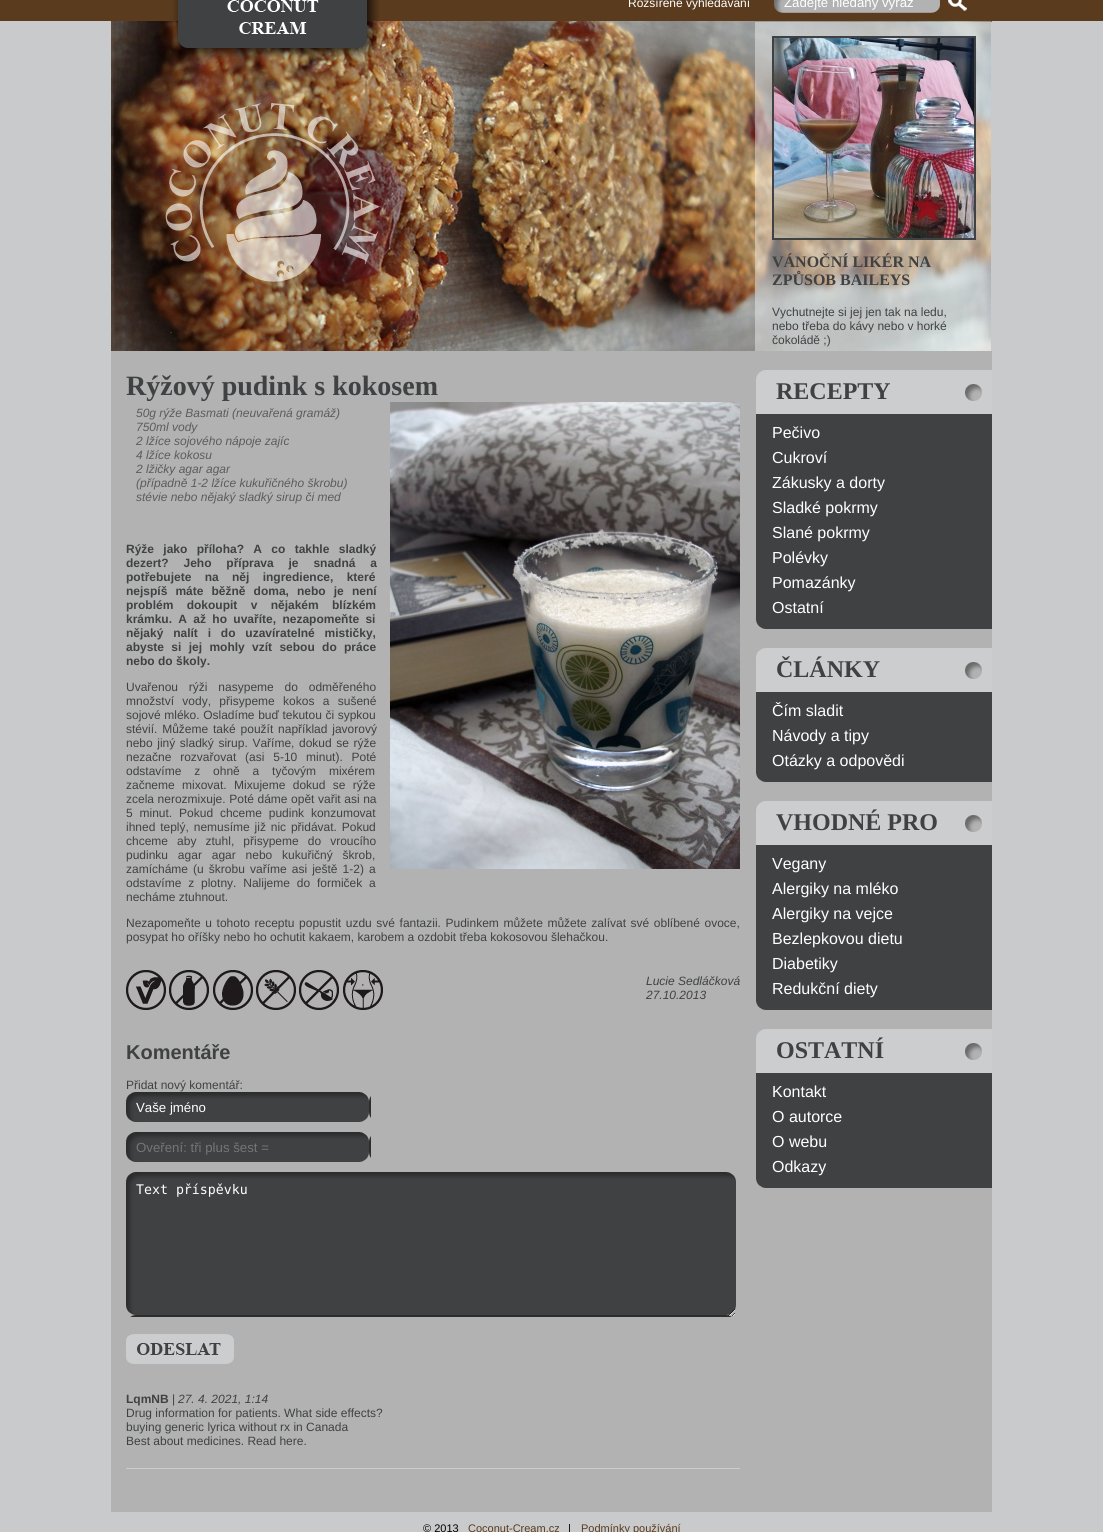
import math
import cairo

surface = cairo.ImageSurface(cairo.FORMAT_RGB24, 1103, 1532)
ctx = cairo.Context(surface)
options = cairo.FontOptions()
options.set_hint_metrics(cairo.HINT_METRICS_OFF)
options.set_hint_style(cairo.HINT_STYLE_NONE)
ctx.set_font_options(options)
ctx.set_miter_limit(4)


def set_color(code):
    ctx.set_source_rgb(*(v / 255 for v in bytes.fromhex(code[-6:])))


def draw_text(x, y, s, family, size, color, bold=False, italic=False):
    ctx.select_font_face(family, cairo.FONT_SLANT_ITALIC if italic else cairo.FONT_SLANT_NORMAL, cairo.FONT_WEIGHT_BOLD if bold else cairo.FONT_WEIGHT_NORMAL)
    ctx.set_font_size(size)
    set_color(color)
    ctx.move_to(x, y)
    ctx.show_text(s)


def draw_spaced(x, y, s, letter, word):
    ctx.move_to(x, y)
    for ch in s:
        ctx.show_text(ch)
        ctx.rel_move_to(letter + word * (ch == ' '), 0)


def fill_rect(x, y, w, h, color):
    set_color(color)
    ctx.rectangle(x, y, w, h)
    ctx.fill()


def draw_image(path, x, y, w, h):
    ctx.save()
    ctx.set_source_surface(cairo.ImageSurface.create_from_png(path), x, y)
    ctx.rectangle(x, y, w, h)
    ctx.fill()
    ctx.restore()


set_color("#c9cacb")
ctx.paint()
fill_rect(0, 0, 1103, 21, "#5b3b1e")
draw_image("assets/img1.png", 173, 0, 206, 21)
draw_text(628, 7, "Rozšířené vyhledávání", "Liberation Sans", 12, "#ffffff")
draw_image("assets/img2.png", 774, 0, 166, 13)
draw_text(784, 7, "Zadejte hledaný výraz", "Liberation Sans", 13.25, "#ffffff")
draw_image("assets/img3.png", 947, 0, 20, 13)
fill_rect(111, 351, 881, 1161, "#b2b2b2")
draw_image("assets/img4.png", 111, 21, 881, 330)
ctx.rectangle(773, 37, 202, 202)
set_color("#3f4142")
ctx.stroke()
draw_image("assets/img5.png", 774, 38, 200, 200)
draw_text(772, 267, "VÁNOČNÍ LIKÉR NA", "Liberation Serif", 16, "#3f4142", bold=True)
draw_text(772, 285, "ZPŮSOB BAILEYS", "Liberation Serif", 16, "#3f4142", bold=True)
draw_text(772, 316, "Vychutnejte si jej jen tak na ledu,", "Liberation Sans", 12, "#3f4142")
draw_text(772, 330, "nebo třeba do kávy nebo v horké", "Liberation Sans", 12, "#3f4142")
draw_text(772, 344, "čokoládě ;)", "Liberation Sans", 12, "#3f4142")
draw_text(126, 395, "Rýžový pudink s kokosem", "Liberation Serif", 28, "#3f4142", bold=True)
draw_text(136, 417, "50g rýže Basmati (neuvařená gramáž)", "Liberation Sans", 12, "#5c5c5c", italic=True)
draw_text(136, 431, "750ml vody", "Liberation Sans", 12, "#5c5c5c", italic=True)
draw_text(136, 445, "2 lžíce sojového nápoje zajíc", "Liberation Sans", 12, "#5c5c5c", italic=True)
draw_text(136, 459, "4 lžíce kokosu", "Liberation Sans", 12, "#5c5c5c", italic=True)
draw_text(136, 473, "2 lžičky agar agar", "Liberation Sans", 12, "#5c5c5c", italic=True)
draw_text(136, 487, "(případně 1-2 lžíce kukuřičného škrobu)", "Liberation Sans", 12, "#5c5c5c", italic=True)
draw_text(136, 501, "stévie nebo nějaký sladký sirup či med", "Liberation Sans", 12, "#5c5c5c", italic=True)
draw_image("assets/img6.png", 390, 402, 350, 467)
ctx.select_font_face("Liberation Sans", cairo.FONT_SLANT_NORMAL, cairo.FONT_WEIGHT_BOLD)
set_color("#3f4142")
draw_spaced(126, 553, "Rýže jako příloha? A co takhle sladký", 0, 6)
draw_spaced(126, 567, "dezert? Jeho příprava je snadná a", 0, 11.5)
draw_spaced(126, 581, "potřebujete na něj ingredience, které", 0, 10)
draw_spaced(126, 595, "nejspíš máte běžně doma, nebo je není", 0, 4.75)
draw_spaced(126, 609, "problém dokoupit v nějakém blízkém", 0, 10)
draw_spaced(126, 623, "krámku. A až ho uvaříte, nezapomeňte si", 0, 3)
draw_spaced(126, 637, "nějaký nalít i do uzavíratelné mističky,", 0, 6.5)
draw_spaced(126, 651, "abyste si jej mohly vzít sebou do práce", 0, 4)
draw_text(126, 665, "nebo do školy.", "Liberation Sans", 12, "#3f4142", bold=True)
ctx.select_font_face("Liberation Sans")
draw_spaced(126, 691, "Uvařenou rýži nasypeme do odměřeného", 0, 7.5)
draw_spaced(126, 705, "množství vody, přisypeme kokos a sušené", 0, 5)
draw_spaced(126, 719, "sojové mléko. Osladíme buď tekutou či sypkou", 0, 0.25)
draw_spaced(126, 733, "stévií. Můžeme také použít například javorový", 0, 1.5)
draw_spaced(126, 747, "nebo jiný sladký sirup. Vaříme, dokud se rýže", 0, 1.25)
draw_spaced(126, 761, "nezačne rozvařovat (asi 5-10 minut). Poté", 0, 5.5)
draw_spaced(126, 775, "odstavíme z ohně a tyčovým mixérem", 0, 9.5)
draw_spaced(126, 789, "začneme mixovat. Mixujeme dokud se rýže", 0, 4)
draw_spaced(126, 803, "zcela nerozmixuje. Poté dáme opět vařit asi na", 0, 0.25)
draw_spaced(126, 817, "5 minut. Pokud chceme pudink konzumovat", 0, 3.5)
draw_spaced(126, 831, "ihned teplý, nemusíme již nic přidávat. Pokud", 0, 1.5)
draw_spaced(126, 845, "chceme aby ztuhl, přisypeme do vroucího", 0, 5.75)
draw_spaced(126, 859, "pudinku agar agar nebo kukuřičný škrob,", 0, 6.5)
draw_spaced(126, 873, "zamícháme (u škrobu vaříme asi ještě 1-2) a", 0, 1.75)
draw_spaced(126, 887, "odstavíme z plotny. Nalijeme do formiček a", 0, 3.5)
draw_text(126, 901, "necháme ztuhnout.", "Liberation Sans", 12, "#3f4142")
draw_spaced(126, 927, "Nezapomeňte u tohoto receptu popustit uzdu své fantazii. Pudinkem můžete můžete zalívat své oblíbené ovoce,", 0, 1.25)
draw_text(126, 941, "posypat ho oříšky nebo ho ochutit kakaem, karobem a ozdobit třeba kokosovou šlehačkou.", "Liberation Sans", 12, "#3f4142")
draw_image("assets/img7.png", 126, 970, 40, 40)
draw_image("assets/img8.png", 169, 970, 40, 40)
draw_image("assets/img9.png", 213, 970, 40, 40)
draw_image("assets/img10.png", 256, 970, 40, 40)
draw_image("assets/img11.png", 299, 970, 40, 40)
draw_image("assets/img12.png", 343, 970, 40, 40)
draw_text(646, 985, "Lucie Sedláčková", "Liberation Sans", 12, "#3f4142", italic=True)
draw_text(646, 999, "27.10.2013", "Liberation Sans", 12, "#3f4142", italic=True)
draw_text(126, 1059, "Komentáře", "Liberation Sans", 20, "#3f4142", bold=True)
draw_text(126, 1089, "Přidat nový komentář:", "Liberation Sans", 12, "#3f4142")
draw_image("assets/img13.png", 126, 1092, 245, 30)
draw_text(136, 1112, "Vaše jméno", "Liberation Sans", 13.25, "#ffffff")
draw_image("assets/img13.png", 126, 1132, 245, 30)
draw_text(136, 1152, "Oveření: tři plus šest =", "Liberation Sans", 13.25, "#757575")
draw_image("assets/img14.png", 126, 1172, 610, 145)
draw_text(136, 1194, "Text příspěvku", "DejaVu Sans Mono", 13.25, "#ffffff")
draw_image("assets/img15.png", 126, 1334, 108, 30)
draw_text(126, 1403, "LqmNB", "Liberation Sans", 12, "#3f4142", bold=True)
draw_text(172, 1403, "|", "Liberation Sans", 12, "#3f4142")
draw_text(178, 1403, "27. 4. 2021, 1:14", "Liberation Sans", 12, "#3f4142", italic=True)
draw_text(126, 1417, "Drug information for patients. What side effects?", "Liberation Sans", 12, "#3f4142")
draw_text(126, 1431, "buying generic lyrica without rx in Canada", "Liberation Sans", 12, "#3f4142")
draw_text(126, 1445, "Best about medicines. Read here.", "Liberation Sans", 12, "#3f4142")
fill_rect(126, 1468, 614, 1, "#cccdce")
draw_image("assets/img16.png", 756, 370, 236, 44)
draw_text(776, 399, "RECEPTY", "Liberation Serif", 24, "#3f4142", bold=True)
fill_rect(756, 414, 236, 206, "#3f4142")
draw_text(772, 438, "Pečivo", "Liberation Sans", 16, "#ffffff")
draw_text(772, 463, "Cukroví", "Liberation Sans", 16, "#ffffff")
draw_text(772, 488, "Zákusky a dorty", "Liberation Sans", 16, "#ffffff")
draw_text(772, 513, "Sladké pokrmy", "Liberation Sans", 16, "#ffffff")
draw_text(772, 538, "Slané pokrmy", "Liberation Sans", 16, "#ffffff")
draw_text(772, 563, "Polévky", "Liberation Sans", 16, "#ffffff")
draw_text(772, 588, "Pomazánky", "Liberation Sans", 16, "#ffffff")
draw_text(772, 613, "Ostatní", "Liberation Sans", 16, "#ffffff")
draw_image("assets/img17.png", 756, 620, 236, 9)
draw_image("assets/img16.png", 756, 648, 236, 44)
draw_text(776, 677, "ČLÁNKY", "Liberation Serif", 24, "#3f4142", bold=True)
fill_rect(756, 692, 236, 81, "#3f4142")
draw_text(772, 716, "Čím sladit", "Liberation Sans", 16, "#ffffff")
draw_text(772, 741, "Návody a tipy", "Liberation Sans", 16, "#ffffff")
draw_text(772, 766, "Otázky a odpovědi", "Liberation Sans", 16, "#ffffff")
draw_image("assets/img17.png", 756, 773, 236, 9)
draw_image("assets/img16.png", 756, 801, 236, 44)
draw_text(776, 830, "VHODNÉ PRO", "Liberation Serif", 24, "#3f4142", bold=True)
fill_rect(756, 845, 236, 156, "#3f4142")
draw_text(772, 869, "Vegany", "Liberation Sans", 16, "#ffffff")
draw_text(772, 894, "Alergiky na mléko", "Liberation Sans", 16, "#ffffff")
draw_text(772, 919, "Alergiky na vejce", "Liberation Sans", 16, "#ffffff")
draw_text(772, 944, "Bezlepkovou dietu", "Liberation Sans", 16, "#ffffff")
draw_text(772, 969, "Diabetiky", "Liberation Sans", 16, "#ffffff")
draw_text(772, 994, "Redukční diety", "Liberation Sans", 16, "#ffffff")
draw_image("assets/img17.png", 756, 1001, 236, 9)
draw_image("assets/img16.png", 756, 1029, 236, 44)
draw_text(776, 1058, "OSTATNÍ", "Liberation Serif", 24, "#3f4142", bold=True)
fill_rect(756, 1073, 236, 106, "#3f4142")
draw_text(772, 1097, "Kontakt", "Liberation Sans", 16, "#ffffff")
draw_text(772, 1122, "O autorce", "Liberation Sans", 16, "#ffffff")
draw_text(772, 1147, "O webu", "Liberation Sans", 16, "#ffffff")
draw_text(772, 1172, "Odkazy", "Liberation Sans", 16, "#ffffff")
draw_image("assets/img17.png", 756, 1179, 236, 9)
draw_text(423, 1532, "© 2013", "Liberation Sans", 11, "#000000")
draw_text(468, 1532, "Coconut-Cream.cz", "Liberation Sans", 11, "#5b3b1e")
draw_text(568, 1532, "|", "Liberation Sans", 11, "#000000")
draw_text(581, 1532, "Podmínky používání", "Liberation Sans", 11, "#5b3b1e")
surface.write_to_png("output.png")
